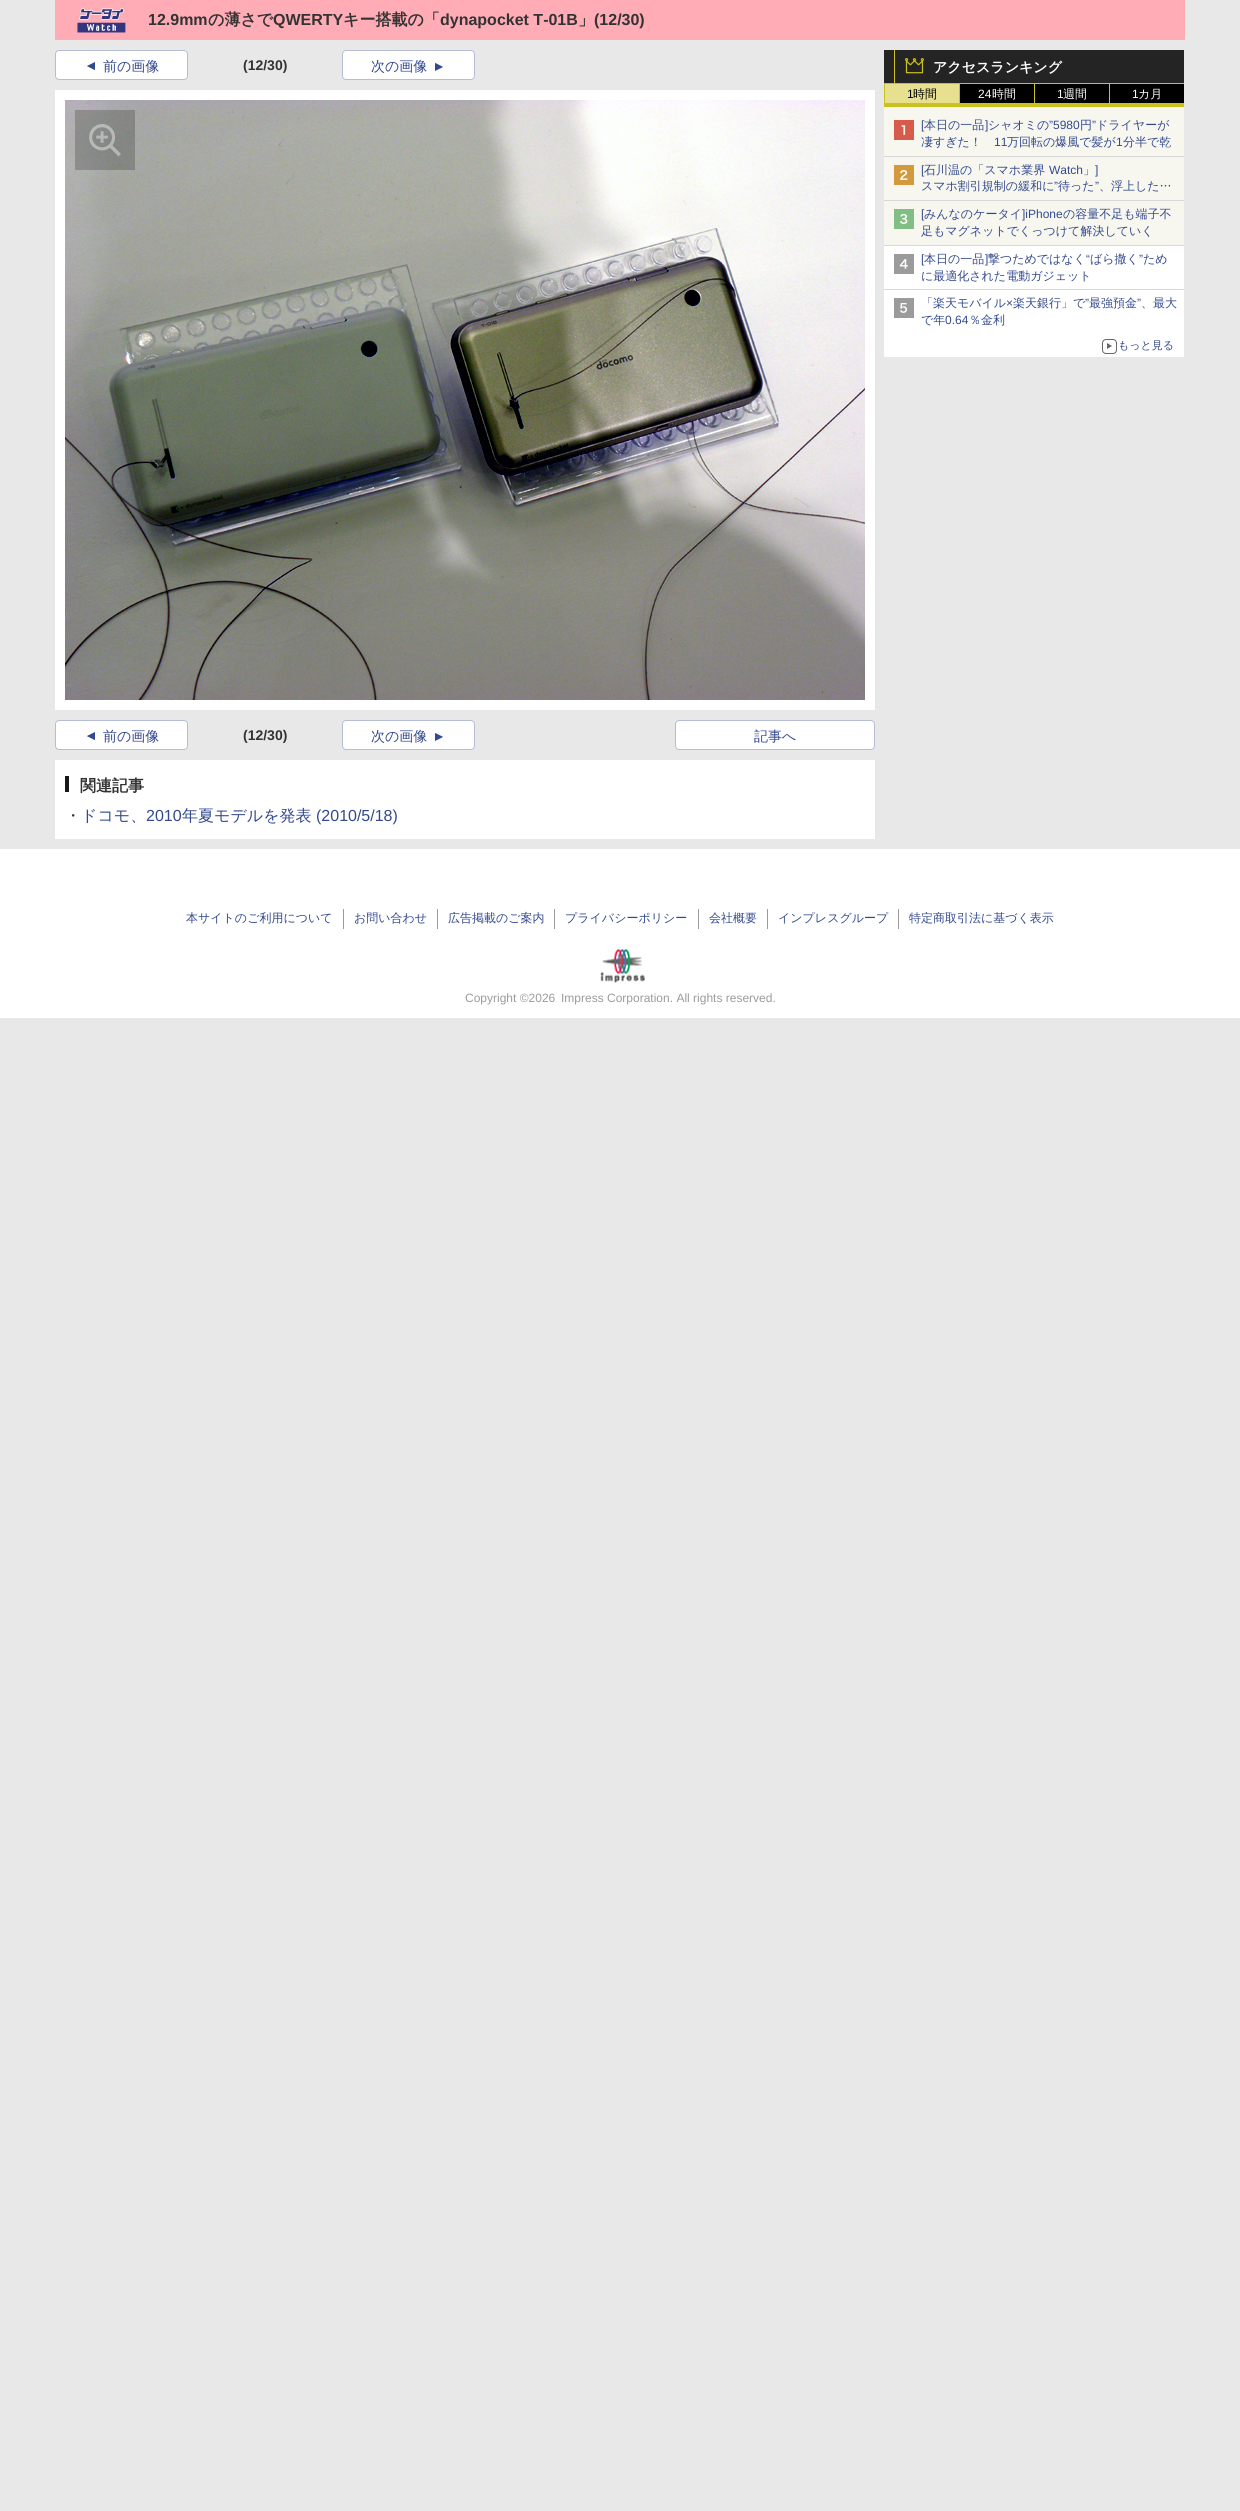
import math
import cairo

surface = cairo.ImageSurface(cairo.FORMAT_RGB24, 1240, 2511)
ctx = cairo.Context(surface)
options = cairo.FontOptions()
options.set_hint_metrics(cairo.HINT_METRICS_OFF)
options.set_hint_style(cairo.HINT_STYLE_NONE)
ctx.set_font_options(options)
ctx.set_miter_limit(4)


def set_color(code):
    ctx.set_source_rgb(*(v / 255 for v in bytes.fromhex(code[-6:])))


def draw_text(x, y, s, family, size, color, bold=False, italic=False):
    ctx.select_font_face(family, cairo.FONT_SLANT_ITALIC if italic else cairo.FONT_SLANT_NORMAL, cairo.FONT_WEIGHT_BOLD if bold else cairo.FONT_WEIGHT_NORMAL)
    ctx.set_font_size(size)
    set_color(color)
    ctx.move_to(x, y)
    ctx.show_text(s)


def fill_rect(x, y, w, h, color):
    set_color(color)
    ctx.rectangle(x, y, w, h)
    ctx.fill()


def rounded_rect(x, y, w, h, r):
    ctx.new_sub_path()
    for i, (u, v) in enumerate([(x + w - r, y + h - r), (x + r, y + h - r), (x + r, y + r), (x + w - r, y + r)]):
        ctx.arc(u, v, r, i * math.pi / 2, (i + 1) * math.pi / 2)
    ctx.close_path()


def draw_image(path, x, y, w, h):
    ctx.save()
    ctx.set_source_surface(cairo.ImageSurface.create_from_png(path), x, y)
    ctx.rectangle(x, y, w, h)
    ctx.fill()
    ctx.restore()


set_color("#e8e8e8")
ctx.paint()
fill_rect(55, 0, 1130, 40, "#ffacb7")
draw_image("assets/img1.png", 77, 8, 49, 25)
draw_text(148, 25, "12.9mm", "Liberation Sans", 16, "#333333", bold=True)
draw_text(208, 25, "の薄さで", "WenQuanYi Zen Hei", 16, "#333333", bold=True)
draw_text(273, 25, "QWERTY", "Liberation Sans", 16, "#333333", bold=True)
draw_text(343, 25, "キー搭載の「", "WenQuanYi Zen Hei", 16, "#333333", bold=True)
draw_text(440, 25, "dynapocket T-01B", "Liberation Sans", 16, "#333333", bold=True)
draw_text(578, 25, "」", "WenQuanYi Zen Hei", 16, "#333333", bold=True)
draw_text(594, 25, "(12/30)", "Liberation Sans", 16, "#333333", bold=True)
set_color("#ffffff")
rounded_rect(55, 50, 133, 30, 4)
ctx.fill()
rounded_rect(55.5, 50.5, 132, 29, 3.5)
ctx.set_source_rgba(0.196, 0.286, 0.557, 0.36)
ctx.set_line_width(1)
ctx.stroke()
ctx.save()
ctx.translate(95, 73)
ctx.rotate(-90 * math.pi / 180)
draw_text(0, 0, "▲", "Liberation Sans", 14, "#33498e")
ctx.restore()
draw_text(103, 71, "前の画像", "WenQuanYi Zen Hei Medium", 14, "#33498e")
draw_text(243, 70, "(12/30)", "Liberation Sans", 14, "#333333", bold=True)
set_color("#ffffff")
rounded_rect(342, 50, 133, 30, 4)
ctx.fill()
rounded_rect(342.5, 50.5, 132, 29, 3.5)
ctx.set_source_rgba(0.196, 0.286, 0.557, 0.36)
ctx.stroke()
draw_text(371, 71, "次の画像", "WenQuanYi Zen Hei Medium", 14, "#33498e")
ctx.save()
ctx.translate(435, 60)
ctx.rotate(90 * math.pi / 180)
draw_text(0, 0, "▲", "Liberation Sans", 14, "#33498e")
ctx.restore()
fill_rect(55, 90, 820, 620, "#ffffff")
draw_image("assets/img2.png", 65, 100, 800, 600)
ctx.set_source_rgba(0, 0, 0, 0.2)
ctx.rectangle(75, 110, 60, 60)
ctx.fill()
draw_image("assets/img3.png", 89, 124, 32, 33)
set_color("#ffffff")
rounded_rect(55, 720, 133, 30, 4)
ctx.fill()
rounded_rect(55.5, 720.5, 132, 29, 3.5)
ctx.set_source_rgba(0.196, 0.286, 0.557, 0.36)
ctx.stroke()
ctx.save()
ctx.translate(95, 743)
ctx.rotate(-90 * math.pi / 180)
draw_text(0, 0, "▲", "Liberation Sans", 14, "#33498e")
ctx.restore()
draw_text(103, 741, "前の画像", "WenQuanYi Zen Hei Medium", 14, "#33498e")
draw_text(243, 740, "(12/30)", "Liberation Sans", 14, "#333333", bold=True)
set_color("#ffffff")
rounded_rect(342, 720, 133, 30, 4)
ctx.fill()
rounded_rect(342.5, 720.5, 132, 29, 3.5)
ctx.set_source_rgba(0.196, 0.286, 0.557, 0.36)
ctx.stroke()
draw_text(371, 741, "次の画像", "WenQuanYi Zen Hei Medium", 14, "#33498e")
ctx.save()
ctx.translate(435, 730)
ctx.rotate(90 * math.pi / 180)
draw_text(0, 0, "▲", "Liberation Sans", 14, "#33498e")
ctx.restore()
set_color("#ffffff")
rounded_rect(675, 720, 200, 30, 4)
ctx.fill()
rounded_rect(675.5, 720.5, 199, 29, 3.5)
ctx.set_source_rgba(0.196, 0.286, 0.557, 0.36)
ctx.stroke()
draw_text(754, 741, "記事へ", "WenQuanYi Zen Hei Medium", 14, "#33498e")
fill_rect(55, 760, 820, 79, "#ffffff")
fill_rect(65, 776, 4, 16, "#181818")
draw_text(80, 791, "関連記事", "WenQuanYi Zen Hei", 16, "#333333", bold=True)
draw_text(65, 821, "・", "WenQuanYi Zen Hei Medium", 16, "#333333")
draw_text(81, 821, "ドコモ、", "WenQuanYi Zen Hei Medium", 16, "#33498e")
draw_text(146, 821, "2010", "Liberation Sans", 16, "#33498e")
draw_text(182, 821, "年夏モデルを発表", "WenQuanYi Zen Hei Medium", 16, "#33498e")
draw_text(316, 821, "(2010/5/18)", "Liberation Sans", 16, "#33498e")
fill_rect(884, 50, 300, 33, "#242424")
fill_rect(884, 83, 300, 1, "#cbc121")
fill_rect(894, 50, 1, 34, "#cbc121")
draw_image("assets/img4.png", 905, 58, 19, 16)
draw_text(933, 72, "アクセスランキング", "WenQuanYi Zen Hei", 14, "#ffffff", bold=True)
fill_rect(885, 84, 74, 19, "#e7e18f")
fill_rect(884, 103, 300, 4, "#cbc121")
fill_rect(884, 84, 1, 23, "#cbc121")
draw_text(907, 98, "1", "Liberation Sans", 12, "#000000")
draw_text(913, 98, "時間", "WenQuanYi Zen Hei Medium", 12, "#000000")
fill_rect(960, 84, 74, 19, "#000000")
fill_rect(959, 84, 1, 23, "#cbc121")
draw_text(978, 98, "24", "Liberation Sans", 12, "#ffffff")
draw_text(992, 98, "時間", "WenQuanYi Zen Hei Medium", 12, "#ffffff")
fill_rect(1035, 84, 74, 19, "#000000")
fill_rect(1034, 84, 1, 23, "#cbc121")
draw_text(1057, 98, "1", "Liberation Sans", 12, "#ffffff")
draw_text(1063, 98, "週間", "WenQuanYi Zen Hei Medium", 12, "#ffffff")
fill_rect(1110, 84, 74, 19, "#000000")
fill_rect(1109, 84, 1, 23, "#cbc121")
draw_text(1132, 98, "1", "Liberation Sans", 12, "#ffffff")
draw_text(1138, 98, "カ月", "WenQuanYi Zen Hei Medium", 12, "#ffffff")
fill_rect(884, 107, 300, 49, "#f7f7ef")
fill_rect(884, 156, 300, 1, "#d8d8d8")
draw_image("assets/img5.png", 894, 120, 20, 20)
draw_text(921, 129, "[", "Liberation Sans", 12, "#33498e")
draw_text(924, 129, "本日の一品 シャオミの", "WenQuanYi Zen Hei Medium", 12, "#33498e")
draw_text(1080, 129, "円", "WenQuanYi Zen Hei Medium", 12, "#33498e")
draw_text(1096, 129, "ドライヤーが", "WenQuanYi Zen Hei Medium", 12, "#33498e")
draw_text(985, 129, "]", "Liberation Sans", 12, "#33498e")
draw_text(1049, 129, "”5980", "Liberation Sans", 12, "#33498e")
draw_text(1092, 129, "”", "Liberation Sans", 12, "#33498e")
draw_text(921, 146, "凄すぎた！", "WenQuanYi Zen Hei Medium", 12, "#33498e")
draw_text(994, 146, "11", "Liberation Sans", 12, "#33498e")
draw_text(1007, 146, "万回転の爆風で髪が", "WenQuanYi Zen Hei Medium", 12, "#33498e")
draw_text(1116, 146, "1", "Liberation Sans", 12, "#33498e")
draw_text(1123, 146, "分半で乾", "WenQuanYi Zen Hei Medium", 12, "#33498e")
fill_rect(884, 157, 300, 43, "#f7f7ef")
fill_rect(884, 200, 300, 1, "#d8d8d8")
draw_image("assets/img6.png", 894, 165, 20, 20)
draw_text(921, 174, "[", "Liberation Sans", 12, "#33498e")
draw_text(924, 174, "石川温の「スマホ業界", "WenQuanYi Zen Hei Medium", 12, "#33498e")
draw_text(1049, 174, "Watch", "Liberation Sans", 12, "#33498e")
draw_text(1083, 174, "」", "WenQuanYi Zen Hei Medium", 12, "#33498e")
draw_text(1095, 174, "]", "Liberation Sans", 12, "#33498e")
draw_text(921, 190, "スマホ割引規制の緩和に", "WenQuanYi Zen Hei Medium", 12, "#33498e")
draw_text(1054, 190, "”", "Liberation Sans", 12, "#33498e")
draw_text(1058, 190, "待った", "WenQuanYi Zen Hei Medium", 12, "#33498e")
draw_text(1095, 190, "”", "Liberation Sans", 12, "#33498e")
draw_text(1099, 190, "、浮上した…", "WenQuanYi Zen Hei Medium", 12, "#33498e")
fill_rect(884, 201, 300, 44, "#f7f7ef")
fill_rect(884, 245, 300, 1, "#d8d8d8")
draw_image("assets/img7.png", 894, 209, 20, 20)
draw_text(921, 218, "[", "Liberation Sans", 12, "#33498e")
draw_text(924, 218, "みんなのケータイ", "WenQuanYi Zen Hei Medium", 12, "#33498e")
draw_text(1022, 218, "]iPhone", "Liberation Sans", 12, "#33498e")
draw_text(1063, 218, "の容量不足も端子不", "WenQuanYi Zen Hei Medium", 12, "#33498e")
draw_text(921, 235, "足もマグネットでくっつけて解決していく", "WenQuanYi Zen Hei Medium", 12, "#33498e")
fill_rect(884, 246, 300, 111, "#ffffff")
fill_rect(884, 289, 300, 1, "#d8d8d8")
draw_image("assets/img8.png", 894, 254, 20, 20)
draw_text(921, 263, "[", "Liberation Sans", 12, "#33498e")
draw_text(924, 263, "本日の一品 撃つためではなく", "WenQuanYi Zen Hei Medium", 12, "#33498e")
draw_text(1090, 263, "ばら撒く", "WenQuanYi Zen Hei Medium", 12, "#33498e")
draw_text(985, 263, "]", "Liberation Sans", 12, "#33498e")
draw_text(1086, 263, "“", "Liberation Sans", 12, "#33498e")
draw_text(1139, 263, "”", "Liberation Sans", 12, "#33498e")
draw_text(1143, 263, "ため", "WenQuanYi Zen Hei Medium", 12, "#33498e")
draw_text(921, 280, "に最適化された電動ガジェット", "WenQuanYi Zen Hei Medium", 12, "#33498e")
draw_image("assets/img9.png", 894, 298, 20, 20)
draw_text(921, 307, "「楽天モバイル", "WenQuanYi Zen Hei Medium", 12, "#33498e")
draw_text(1006, 307, "×", "Liberation Sans", 12, "#33498e")
draw_text(1013, 307, "楽天銀行」で", "WenQuanYi Zen Hei Medium", 12, "#33498e")
draw_text(1085, 307, "”", "Liberation Sans", 12, "#33498e")
draw_text(1089, 307, "最強預金", "WenQuanYi Zen Hei Medium", 12, "#33498e")
draw_text(1137, 307, "”", "Liberation Sans", 12, "#33498e")
draw_text(1141, 307, "、最大", "WenQuanYi Zen Hei Medium", 12, "#33498e")
draw_text(921, 324, "で年", "WenQuanYi Zen Hei Medium", 12, "#33498e")
draw_text(945, 324, "0.64", "Liberation Sans", 12, "#33498e")
draw_text(969, 324, "％金利", "WenQuanYi Zen Hei Medium", 12, "#33498e")
rounded_rect(1102.5, 339.5, 14, 14, 3.5)
set_color("#666666")
ctx.stroke()
draw_text(1118, 349, "もっと見る", "WenQuanYi Zen Hei Medium", 11, "#33498e")
set_color("#666666")
ctx.new_path()
ctx.move_to(1107, 349)
ctx.line_to(1107, 343)
ctx.line_to(1112, 346)
ctx.close_path()
ctx.fill()
fill_rect(0, 849, 1240, 169, "#ffffff")
fill_rect(343, 909, 1, 20, "#9b9b9b")
draw_text(186, 922, "本サイトのご利用について", "WenQuanYi Zen Hei Medium", 12, "#33498e")
fill_rect(437, 909, 1, 20, "#9b9b9b")
draw_text(354, 922, "お問い合わせ", "WenQuanYi Zen Hei Medium", 12, "#33498e")
fill_rect(554, 909, 1, 20, "#9b9b9b")
draw_text(448, 922, "広告掲載のご案内", "WenQuanYi Zen Hei Medium", 12, "#33498e")
fill_rect(698, 909, 1, 20, "#9b9b9b")
draw_text(565, 922, "プライバシーポリシー", "WenQuanYi Zen Hei Medium", 12, "#33498e")
fill_rect(767, 909, 1, 20, "#9b9b9b")
draw_text(709, 922, "会社概要", "WenQuanYi Zen Hei Medium", 12, "#33498e")
fill_rect(898, 909, 1, 20, "#9b9b9b")
draw_text(778, 922, "インプレスグループ", "WenQuanYi Zen Hei Medium", 12, "#33498e")
draw_text(909, 922, "特定商取引法に基づく表示", "WenQuanYi Zen Hei Medium", 12, "#33498e")
draw_image("assets/img10.png", 600, 949, 45, 34)
draw_text(465, 1002, "Copyright ©2026", "Liberation Sans", 12, "#9b9b9b")
draw_text(561, 1002, "Impress Corporation. All rights reserved.", "Liberation Sans", 12, "#9b9b9b")
surface.write_to_png("output.png")
